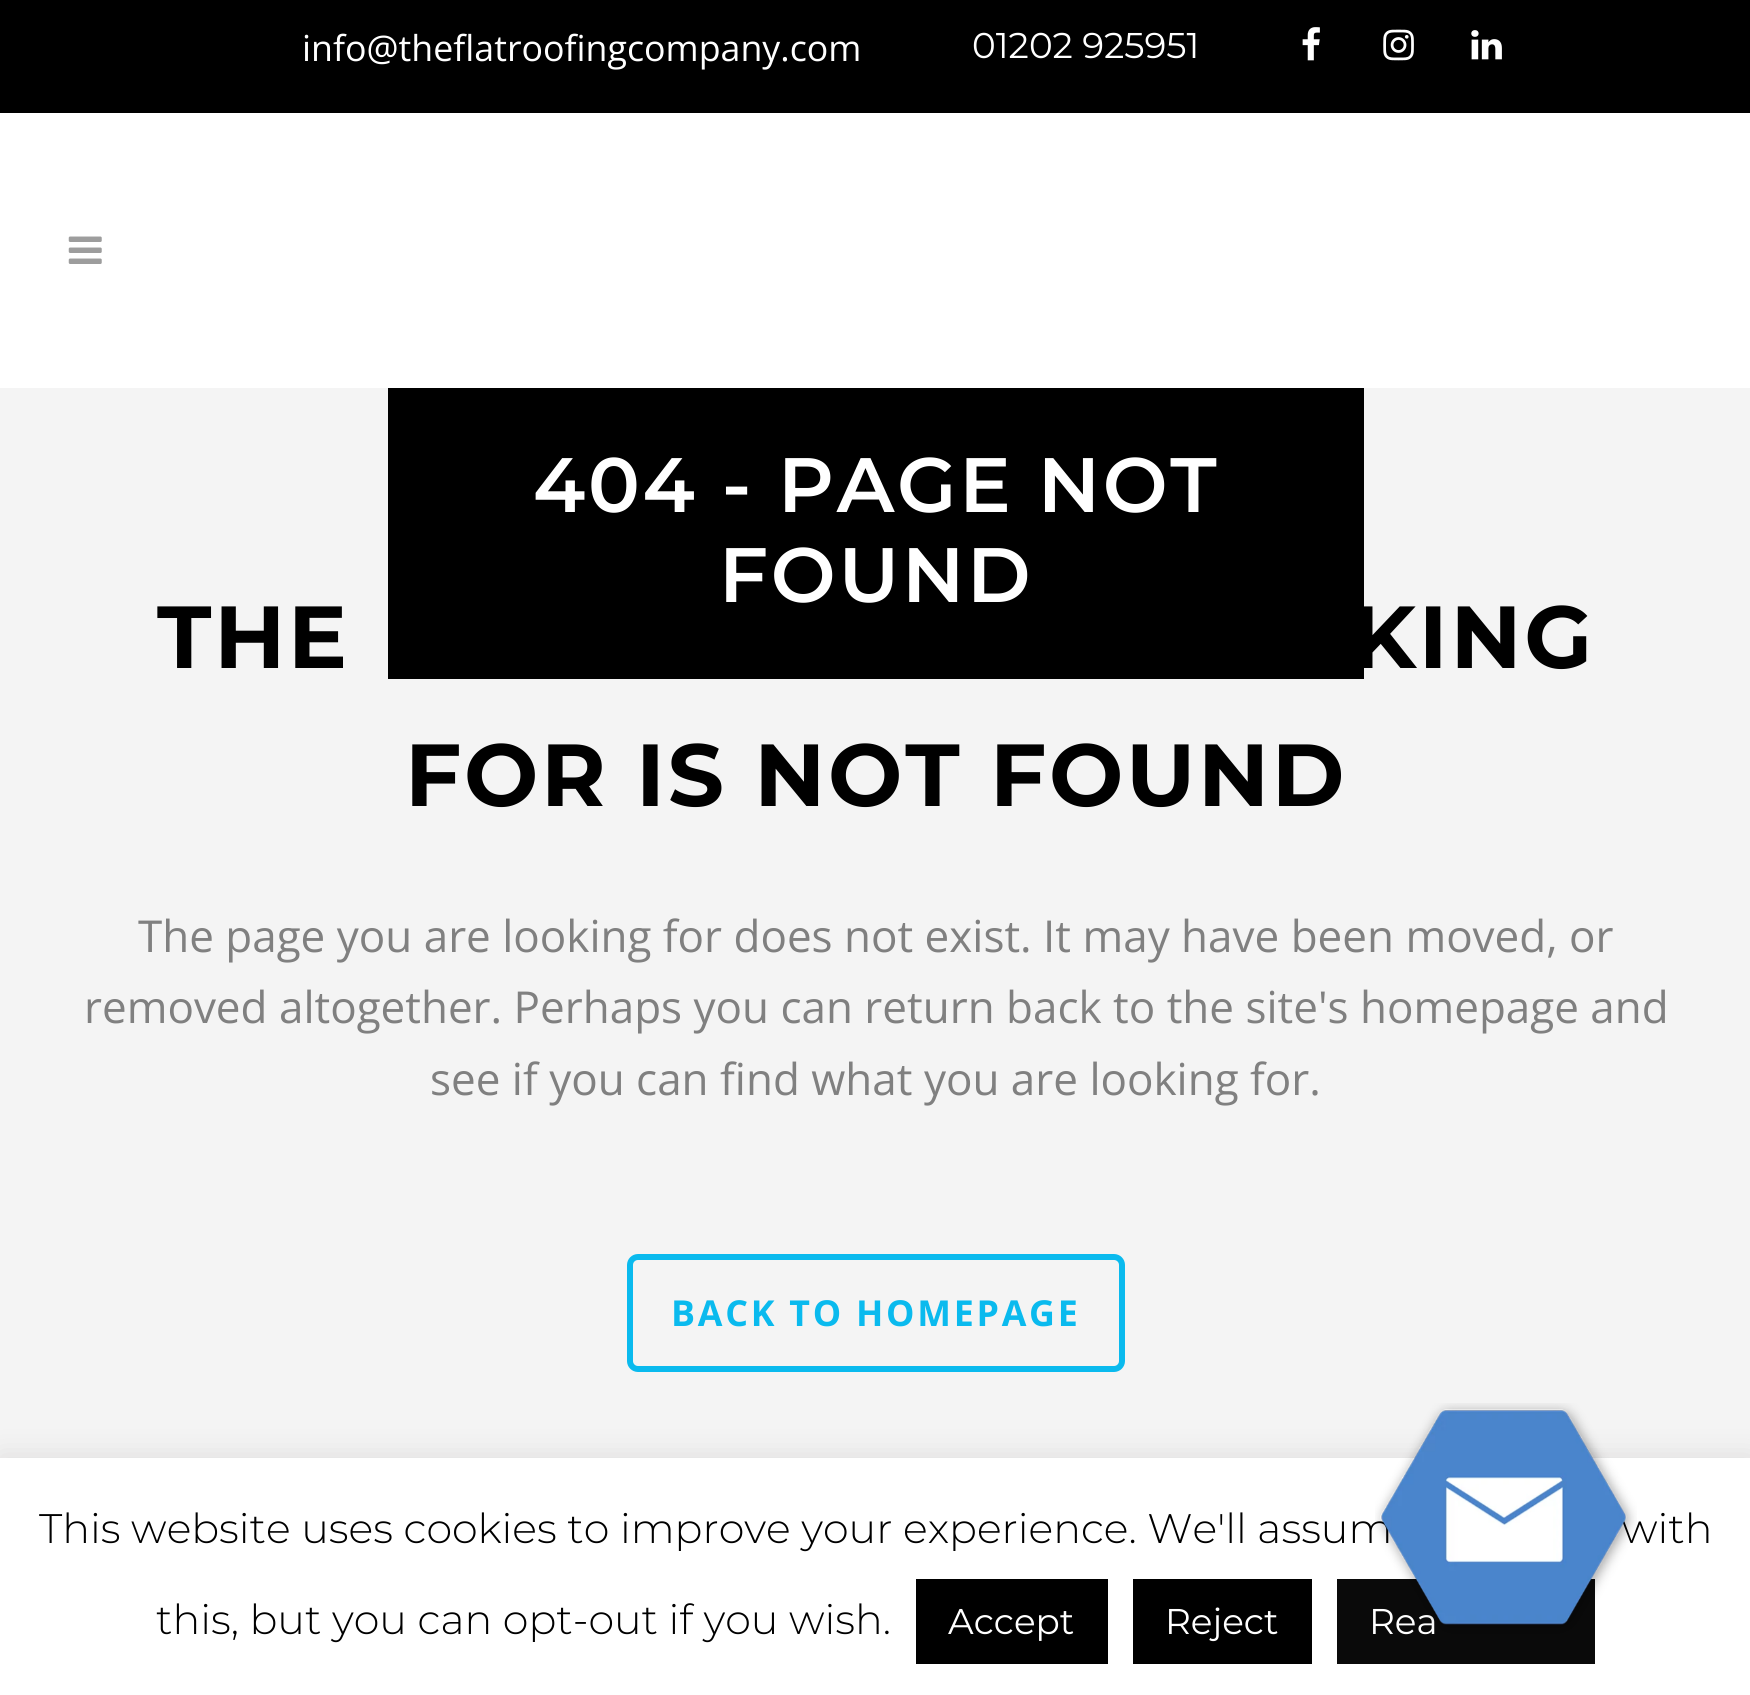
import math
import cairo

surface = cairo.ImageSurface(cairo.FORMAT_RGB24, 1750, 1695)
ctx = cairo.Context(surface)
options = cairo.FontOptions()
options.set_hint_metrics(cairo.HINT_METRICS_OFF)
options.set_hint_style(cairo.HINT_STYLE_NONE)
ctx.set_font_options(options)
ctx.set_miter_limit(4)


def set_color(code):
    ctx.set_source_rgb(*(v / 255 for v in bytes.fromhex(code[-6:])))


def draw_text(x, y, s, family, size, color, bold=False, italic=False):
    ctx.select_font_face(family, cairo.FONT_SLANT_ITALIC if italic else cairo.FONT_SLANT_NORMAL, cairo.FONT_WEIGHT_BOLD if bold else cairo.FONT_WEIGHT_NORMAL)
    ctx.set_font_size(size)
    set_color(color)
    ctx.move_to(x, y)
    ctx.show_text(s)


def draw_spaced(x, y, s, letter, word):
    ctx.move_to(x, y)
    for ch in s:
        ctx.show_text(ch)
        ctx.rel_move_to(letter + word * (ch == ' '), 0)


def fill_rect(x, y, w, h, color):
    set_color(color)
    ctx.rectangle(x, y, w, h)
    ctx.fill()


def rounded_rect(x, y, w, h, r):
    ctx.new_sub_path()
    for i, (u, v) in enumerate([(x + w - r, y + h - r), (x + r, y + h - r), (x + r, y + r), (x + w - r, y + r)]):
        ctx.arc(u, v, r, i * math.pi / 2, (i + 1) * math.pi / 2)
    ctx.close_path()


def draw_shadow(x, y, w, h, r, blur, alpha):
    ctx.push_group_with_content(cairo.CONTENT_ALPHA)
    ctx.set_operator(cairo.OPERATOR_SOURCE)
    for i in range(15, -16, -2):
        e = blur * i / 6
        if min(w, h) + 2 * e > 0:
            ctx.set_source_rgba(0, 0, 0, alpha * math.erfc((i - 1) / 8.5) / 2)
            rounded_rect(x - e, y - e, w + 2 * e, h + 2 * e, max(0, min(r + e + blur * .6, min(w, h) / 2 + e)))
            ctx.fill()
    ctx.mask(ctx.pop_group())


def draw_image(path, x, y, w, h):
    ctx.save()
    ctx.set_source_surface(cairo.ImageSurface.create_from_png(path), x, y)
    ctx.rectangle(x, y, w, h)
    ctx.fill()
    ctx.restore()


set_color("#f4f4f4")
ctx.paint()
fill_rect(0, 0, 1750, 113, "#000000")
draw_text(302, 61, "info@theflatroofingcompany.com", "Open Sans", 35.75, "#ffffff")
draw_text(972, 58, "01202 925951", "Montserrat", 35.75, "#ffffff")
draw_image("assets/img1.png", 1302, 27, 18, 34)
draw_image("assets/img2.png", 1383, 29, 31, 32)
draw_image("assets/img3.png", 1471, 30, 31, 30)
fill_rect(0, 113, 1750, 275, "#ffffff")
draw_image("assets/img4.png", 68, 236, 34, 28)
fill_rect(388, 388, 976, 291, "#000000")
ctx.select_font_face("Montserrat SemiBold")
ctx.set_font_size(77)
set_color("#ffffff")
draw_spaced(533, 512, "404 - PAGE NOT", 2.75, 0)
draw_spaced(719, 602, "FOUND", 2.75, 0)
ctx.select_font_face("Montserrat", cairo.FONT_SLANT_NORMAL, cairo.FONT_WEIGHT_BOLD)
ctx.set_font_size(88)
set_color("#000000")
draw_spaced(157, 668, "THE", 2.75, 0)
draw_spaced(1351, 668, "KING", 2.75, 0)
draw_spaced(405, 806, "FOR IS NOT FOUND", 2.75, 0)
draw_text(138, 952, "The page you are looking for does not exist. It may have been moved, or", "Open Sans", 44, "#808080")
draw_text(84, 1023, "removed altogether. Perhaps you can return back to the site's homepage and", "Open Sans", 44, "#808080")
draw_text(430, 1095, "see if you can find what you are looking for.", "Open Sans", 44, "#808080")
rounded_rect(630, 1257, 492, 112, 8)
set_color("#0abaee")
ctx.set_line_width(6)
ctx.stroke()
ctx.select_font_face("Open Sans", cairo.FONT_SLANT_NORMAL, cairo.FONT_WEIGHT_BOLD)
ctx.set_font_size(35.75)
draw_spaced(671, 1326, "BACK TO HOMEPAGE", 2.75, 0)
set_color("#acabab")
draw_shadow(0, 1455, 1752, 239, 0, 14, 0.3)
fill_rect(0, 1458, 1750, 237, "#ffffff")
draw_text(39, 1543, "This website uses cookies to improve your experience. We'll assum", "Montserrat Light", 41.25, "#000000")
draw_text(1622, 1543, "with", "Montserrat Light", 41.25, "#000000")
fill_rect(1337, 1579, 258, 85, "#0a0a0a")
draw_text(1369, 1634, "Rea", "Montserrat", 35.75, "#ffffff")
draw_image("assets/img5.png", 1375, 1403, 262, 231)
draw_text(156, 1634, "this, but you can opt-out if you wish.", "Montserrat Light", 41.25, "#000000")
fill_rect(916, 1579, 192, 85, "#000000")
draw_text(948, 1634, "Accept", "Montserrat", 35.75, "#ffffff")
fill_rect(1133, 1579, 179, 85, "#000000")
draw_text(1165, 1634, "Reject", "Montserrat", 35.75, "#ffffff")
surface.write_to_png("output.png")
